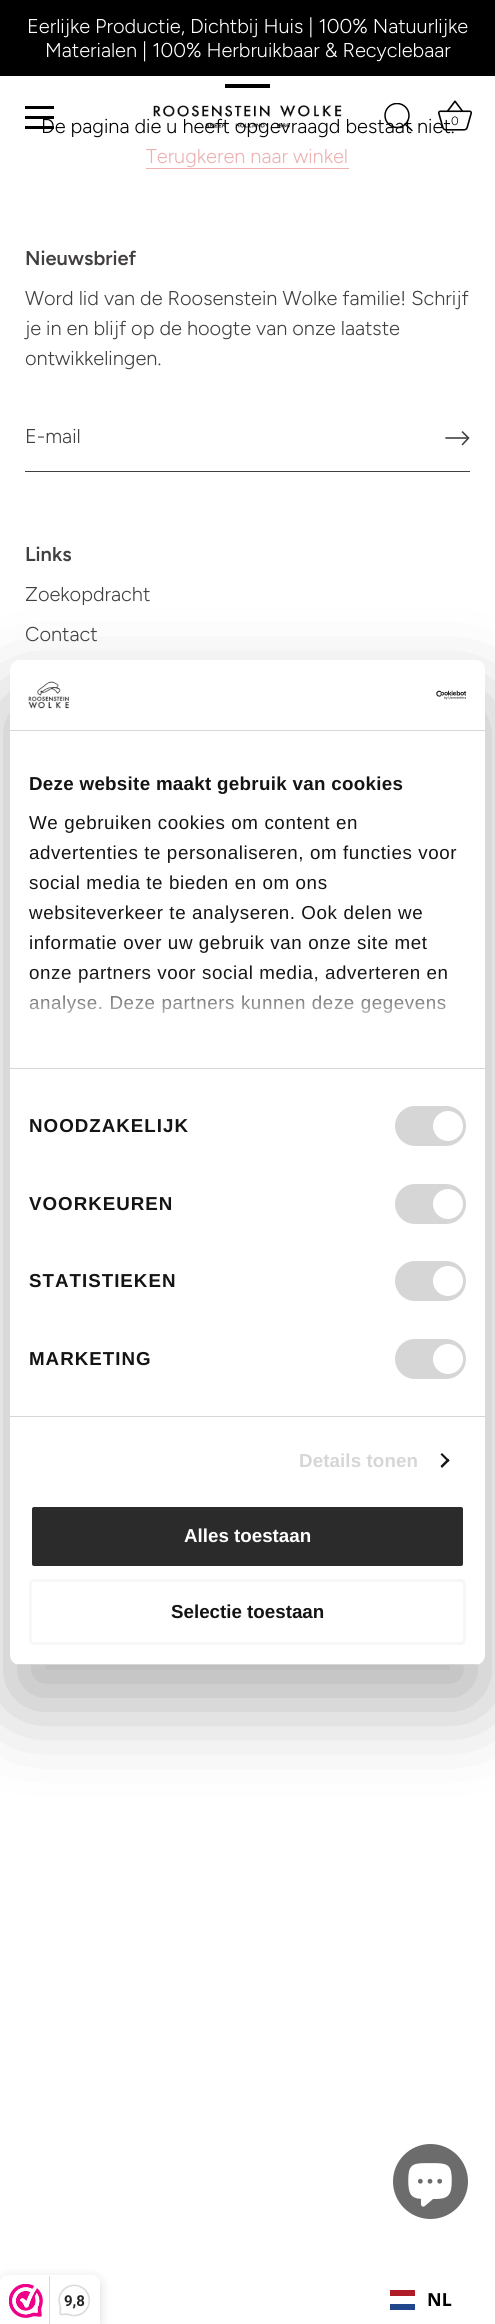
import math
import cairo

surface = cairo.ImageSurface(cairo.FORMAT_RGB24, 495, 2324)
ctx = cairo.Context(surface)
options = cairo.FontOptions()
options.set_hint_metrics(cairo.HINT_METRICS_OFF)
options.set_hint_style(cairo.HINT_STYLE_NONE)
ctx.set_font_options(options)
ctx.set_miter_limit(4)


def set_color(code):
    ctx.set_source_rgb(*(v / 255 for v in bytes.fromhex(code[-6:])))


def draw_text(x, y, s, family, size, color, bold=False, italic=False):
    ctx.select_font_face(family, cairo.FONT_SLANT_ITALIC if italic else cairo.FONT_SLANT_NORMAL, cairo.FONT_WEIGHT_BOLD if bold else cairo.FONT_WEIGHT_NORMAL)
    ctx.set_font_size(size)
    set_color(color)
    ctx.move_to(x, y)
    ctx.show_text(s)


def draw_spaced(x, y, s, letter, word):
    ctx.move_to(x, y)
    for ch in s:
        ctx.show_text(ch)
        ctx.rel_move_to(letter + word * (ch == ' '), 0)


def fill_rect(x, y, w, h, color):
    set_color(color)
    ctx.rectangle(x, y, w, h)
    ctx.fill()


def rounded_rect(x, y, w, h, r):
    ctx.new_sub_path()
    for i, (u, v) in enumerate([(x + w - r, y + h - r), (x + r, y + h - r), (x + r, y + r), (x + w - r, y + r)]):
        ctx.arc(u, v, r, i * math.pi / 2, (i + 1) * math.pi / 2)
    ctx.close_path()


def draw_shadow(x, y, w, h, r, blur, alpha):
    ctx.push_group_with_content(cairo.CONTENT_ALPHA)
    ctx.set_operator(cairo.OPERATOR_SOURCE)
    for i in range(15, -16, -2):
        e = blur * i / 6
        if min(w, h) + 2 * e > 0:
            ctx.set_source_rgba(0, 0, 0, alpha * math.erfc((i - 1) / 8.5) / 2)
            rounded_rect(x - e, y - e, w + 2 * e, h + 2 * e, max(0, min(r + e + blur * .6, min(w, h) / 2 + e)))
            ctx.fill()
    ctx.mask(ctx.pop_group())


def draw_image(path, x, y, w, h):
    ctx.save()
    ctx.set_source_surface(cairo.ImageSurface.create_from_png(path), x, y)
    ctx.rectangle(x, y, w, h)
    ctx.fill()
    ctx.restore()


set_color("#ffffff")
ctx.paint()
fill_rect(0, 0, 495, 76, "#000000")
draw_text(27, 33, "Eerlijke Productie, Dichtbij Huis | 100% Natuurlijke", "Figtree Light", 20, "#ffffff")
draw_text(45, 57, "Materialen | 100% Herbruikbaar & Recyclebaar", "Figtree Light", 20, "#ffffff")
fill_rect(25, 106, 29, 3, "#000000")
fill_rect(25, 116, 29, 3, "#000000")
fill_rect(25, 126, 29, 3, "#000000")
draw_text(41, 133, "De pagina die u heeft opgevraagd bestaat niet.", "Figtree Light", 20, "#000000")
draw_image("assets/img1.png", 153, 105, 189, 23)
ctx.save()
ctx.rectangle(384, 103, 30, 30)
ctx.clip()
ctx.arc(397, 115.5, 12, 0, 2 * math.pi)
ctx.set_line_width(1.5)
ctx.stroke()
ctx.restore()
ctx.new_path()
ctx.move_to(412, 130.5)
ctx.line_to(405, 124)
ctx.set_line_width(1.5)
ctx.set_line_cap(cairo.LINE_CAP_ROUND)
ctx.set_line_join(cairo.LINE_JOIN_ROUND)
ctx.stroke()
draw_image("assets/img2.png", 438, 100, 34, 31)
draw_text(451, 125, "0", "Figtree Light", 12, "#000000")
fill_rect(225, 84, 45, 4, "#000000")
draw_text(146, 163, "Terugkeren naar winkel", "Figtree Light", 20, "#ecb1b0")
fill_rect(146, 168, 203, 1, "#ecb1b0")
draw_text(25, 265, "Nieuwsbrief", "Figtree SemiBold", 20, "#423f3f")
draw_text(25, 305, "Word lid van de Roosenstein Wolke familie! Schrijf", "Figtree Light", 20, "#423f3f")
draw_text(25, 335, "je in en blijf op de hoogte van onze laatste", "Figtree Light", 20, "#423f3f")
draw_text(25, 365, "ontwikkelingen.", "Figtree Light", 20, "#423f3f")
fill_rect(25, 471, 445, 1, "#423f3f")
draw_text(25, 443, "E-mail", "Figtree Light", 20, "#423f3f")
ctx.new_path()
ctx.move_to(462.5, 444.5)
ctx.line_to(468.5, 438)
ctx.line_to(462.5, 432)
ctx.set_line_width(1.6)
ctx.set_line_join(cairo.LINE_JOIN_MITER)
ctx.stroke()
ctx.new_path()
ctx.move_to(468, 438)
ctx.line_to(446, 438)
ctx.set_line_join(cairo.LINE_JOIN_ROUND)
ctx.stroke()
draw_text(25, 561, "Links", "Figtree SemiBold", 20, "#423f3f")
draw_text(25, 601, "Zoekopdracht", "Figtree Light", 20, "#423f3f")
draw_text(25, 641, "Contact", "Figtree Light", 20, "#423f3f")
set_color("#000000")
draw_shadow(10, 700, 475, 1005, 10, 42.5, 0.3)
set_color("#ffffff")
rounded_rect(10, 660, 475, 1005, 10)
ctx.fill()
fill_rect(10, 730, 475, 1, "#d6d6d6")
draw_image("assets/img3.png", 28, 681, 41, 28)
draw_image("assets/img4.png", 436, 690, 30, 10)
fill_rect(10, 1068, 475, 1, "#d6d6d6")
ctx.select_font_face("Liberation Sans", cairo.FONT_SLANT_NORMAL, cairo.FONT_WEIGHT_BOLD)
ctx.set_font_size(18.75)
set_color("#141414")
draw_spaced(29, 790, "Deze website maakt gebruik van cookies", 0.3, 0)
ctx.select_font_face("Liberation Sans")
draw_spaced(29, 829, "We gebruiken cookies om content en", 0.6, 0)
draw_spaced(29, 859, "advertenties te personaliseren, om functies voor", 0.6, 0)
draw_spaced(29, 889, "social media te bieden en om ons", 0.6, 0)
draw_spaced(29, 919, "websiteverkeer te analyseren. Ook delen we", 0.6, 0)
draw_spaced(29, 949, "informatie over uw gebruik van onze site met", 0.6, 0)
draw_spaced(29, 979, "onze partners voor social media, adverteren en", 0.6, 0)
draw_spaced(29, 1009, "analyse. Deze partners kunnen deze gegevens", 0.6, 0)
gradient = cairo.LinearGradient(239, 1068, 239, 974)
gradient.add_color_stop_rgba(0, 1, 1, 1, 1)
gradient.add_color_stop_rgba(0.5, 1, 1, 1, 0.8)
gradient.add_color_stop_rgba(1, 1, 1, 1, 0)
ctx.set_source(gradient)
ctx.rectangle(29, 975, 419, 38)
ctx.fill()
fill_rect(10, 1416, 475, 1, "#d6d6d6")
ctx.select_font_face("Liberation Sans", cairo.FONT_SLANT_NORMAL, cairo.FONT_WEIGHT_BOLD)
set_color("#141414")
draw_spaced(29, 1132, "NOODZAKELIJK", 1, 0)
set_color("#d6d6d6")
rounded_rect(395, 1106, 71, 40, 20)
ctx.fill()
set_color("#ffffff")
ctx.arc(448, 1126, 15, 0, 2 * math.pi)
ctx.fill()
set_color("#141414")
draw_spaced(29, 1210, "VOORKEUREN", 1, 0)
set_color("#d6d6d6")
rounded_rect(395, 1184, 71, 40, 20)
ctx.fill()
set_color("#ffffff")
ctx.arc(448, 1204, 15, 0, 2 * math.pi)
ctx.fill()
set_color("#141414")
draw_spaced(29, 1287, "STATISTIEKEN", 1, 0)
set_color("#d6d6d6")
rounded_rect(395, 1261, 71, 40, 20)
ctx.fill()
set_color("#ffffff")
ctx.arc(448, 1281, 15, 0, 2 * math.pi)
ctx.fill()
set_color("#141414")
draw_spaced(29, 1365, "MARKETING", 1, 0)
set_color("#d6d6d6")
rounded_rect(395, 1339, 71, 40, 20)
ctx.fill()
set_color("#ffffff")
ctx.arc(448, 1359, 15, 0, 2 * math.pi)
ctx.fill()
set_color("#d6d6d6")
draw_spaced(299, 1467, "Details tonen", 0.1, 0)
set_color("#141414")
ctx.new_path()
ctx.move_to(442, 1453)
ctx.line_to(449.5, 1460.5)
ctx.line_to(448, 1462)
ctx.line_to(440.5, 1454.5)
ctx.close_path()
ctx.fill()
ctx.new_path()
ctx.move_to(448, 1458.5)
ctx.line_to(449.5, 1460.5)
ctx.line_to(442, 1468)
ctx.line_to(440.5, 1466)
ctx.close_path()
ctx.fill()
ctx.save()
rounded_rect(10, 660, 475, 1005, 10)
ctx.clip()
fill_rect(10, 1664, 475, 1, "#d6d6d6")
ctx.restore()
set_color("#2b2b2b")
rounded_rect(30.5, 1505.5, 434, 62, 3.5)
ctx.fill_preserve()
set_color("#ffffff")
ctx.set_line_width(3)
ctx.set_line_cap(cairo.LINE_CAP_BUTT)
ctx.set_line_join(cairo.LINE_JOIN_MITER)
ctx.stroke()
draw_text(184, 1542, "Alles toestaan", "Liberation Sans", 18.75, "#ffffff", bold=True)
rounded_rect(30.5, 1580.5, 434, 63, 3.5)
set_color("#f7f7f7")
ctx.stroke()
draw_text(171, 1618, "Selectie toestaan", "Liberation Sans", 18.75, "#141414", bold=True)
set_color("#6c6c6c")
ctx.new_path()
ctx.arc(430.5, 2181.5, 37.5, 0, 2 * math.pi)
ctx.fill()
draw_image("assets/img5.png", 408, 2163, 44, 44)
set_color("#000000")
draw_shadow(0, 2278, 100, 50, 8, 6, 0.15)
set_color("#ffffff")
ctx.new_path()
ctx.move_to(8, 2275)
ctx.line_to(92, 2275)
ctx.curve_to(96.5, 2275, 100, 2278.5, 100, 2283)
ctx.line_to(100, 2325)
ctx.line_to(0, 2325)
ctx.line_to(0, 2283)
ctx.curve_to(0, 2278.5, 3.5, 2275, 8, 2275)
ctx.close_path()
ctx.fill()
draw_image("assets/img6.png", 9, 2284, 34, 34)
fill_rect(49, 2276, 1, 48, "#d9d9d9")
draw_image("assets/img7.png", 58, 2284, 32, 33)
draw_text(64, 2306, "9,8", "Roboto", 15, "#272626", bold=True)
fill_rect(390, 2290, 25, 6, "#ae1c28")
fill_rect(390, 2304, 25, 6, "#21468b")
draw_text(427, 2306, "NL", "Noto Sans", 18, "#000000", bold=True)
surface.write_to_png("output.png")
